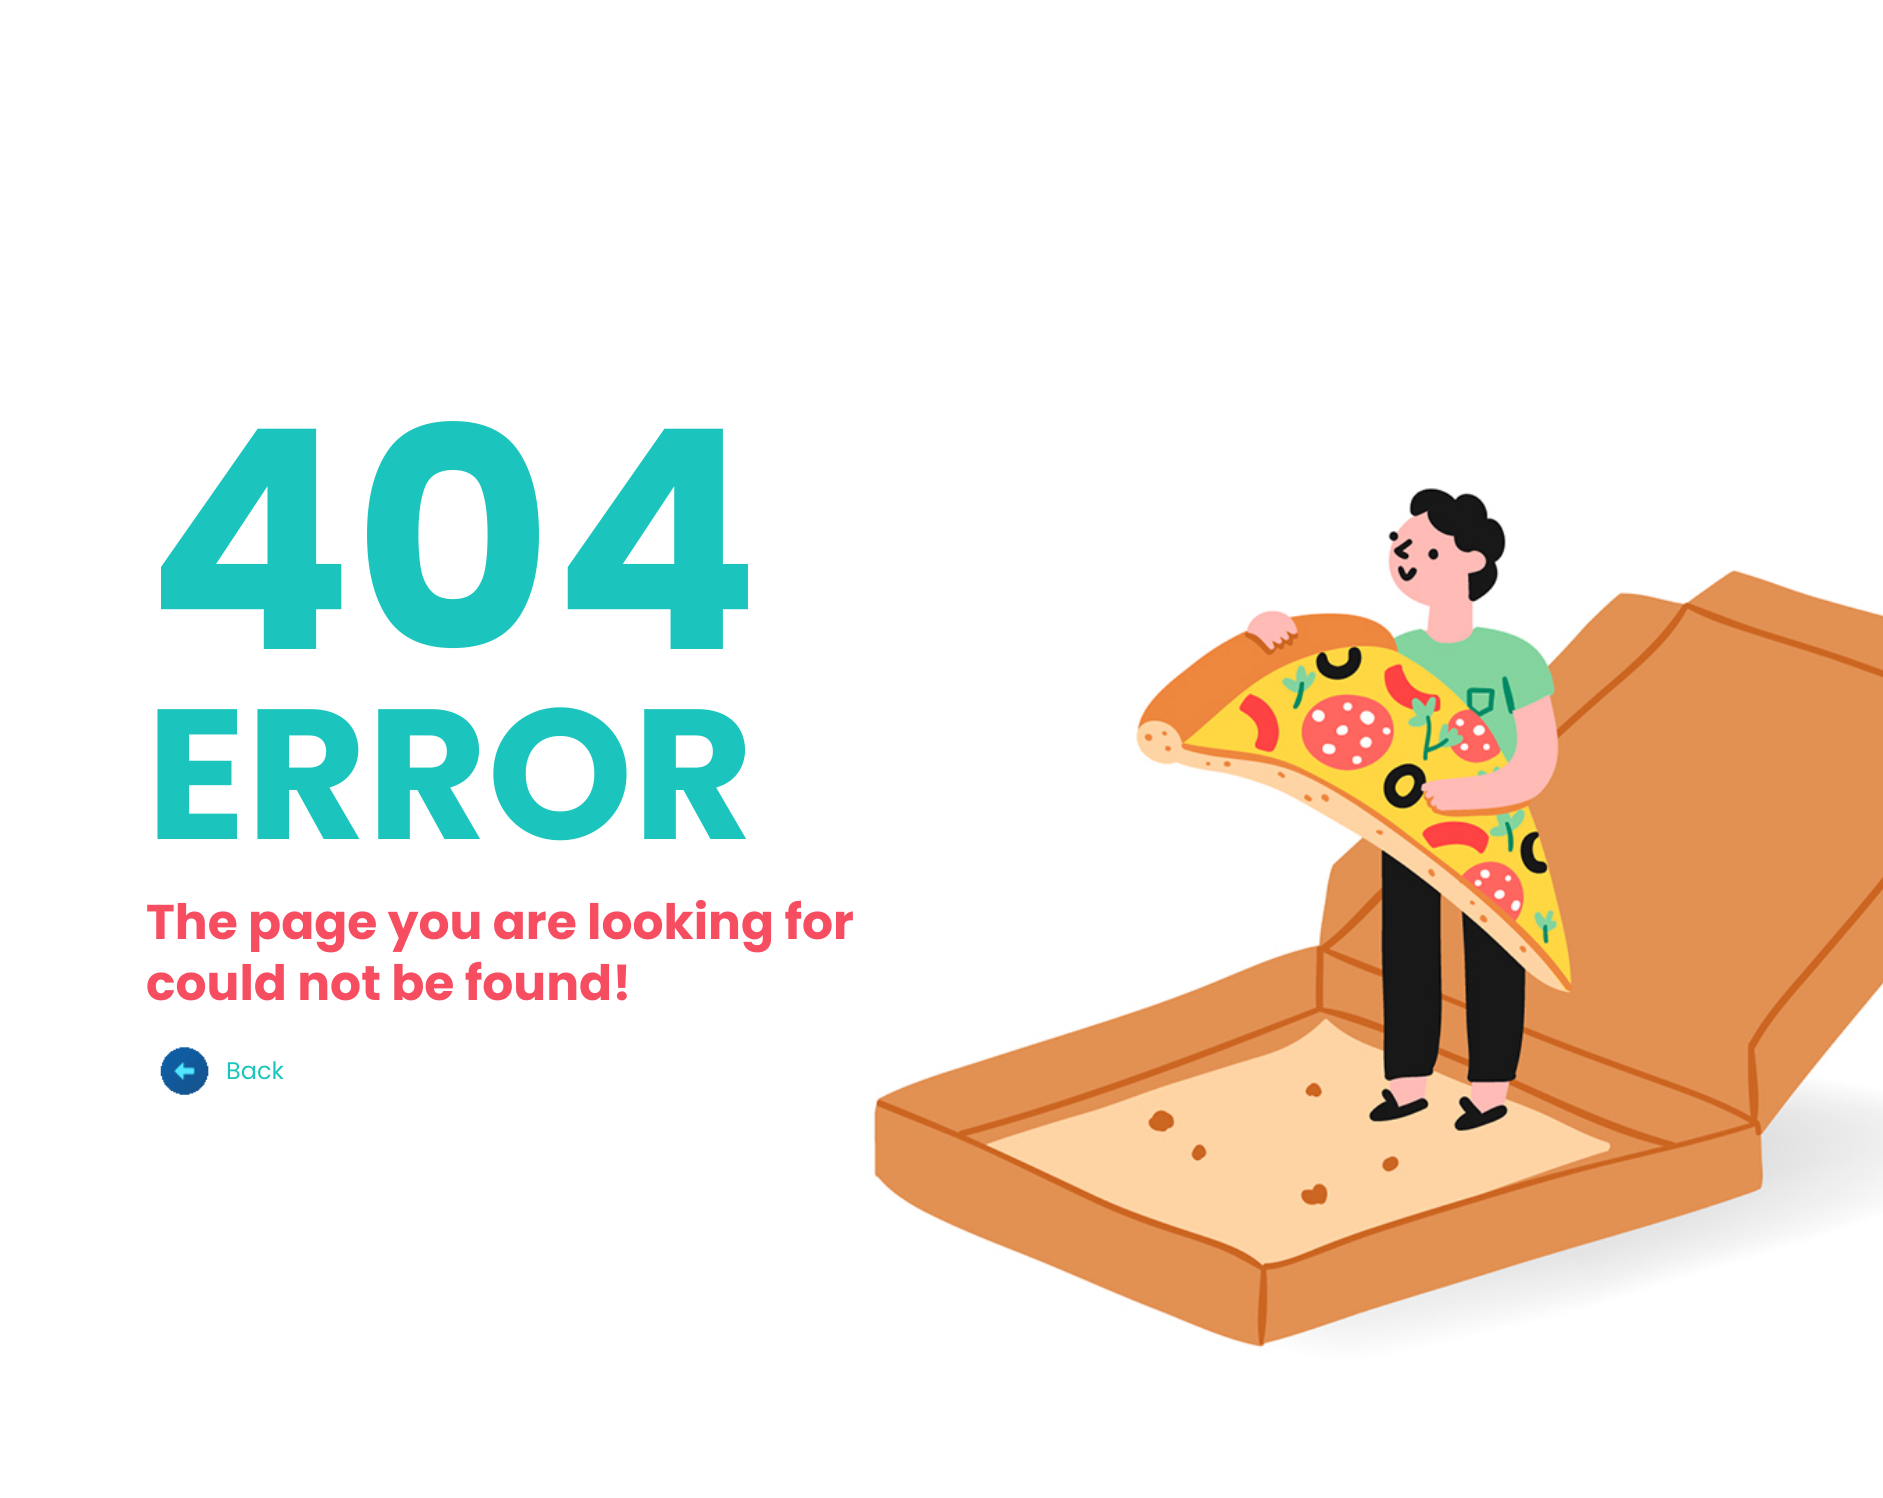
import math
import cairo

surface = cairo.ImageSurface(cairo.FORMAT_RGB24, 1883, 1498)
ctx = cairo.Context(surface)
options = cairo.FontOptions()
options.set_hint_metrics(cairo.HINT_METRICS_OFF)
options.set_hint_style(cairo.HINT_STYLE_NONE)
ctx.set_font_options(options)
ctx.set_miter_limit(4)


def set_color(code):
    ctx.set_source_rgb(*(v / 255 for v in bytes.fromhex(code[-6:])))


def draw_text(x, y, s, family, size, color, bold=False, italic=False):
    ctx.select_font_face(family, cairo.FONT_SLANT_ITALIC if italic else cairo.FONT_SLANT_NORMAL, cairo.FONT_WEIGHT_BOLD if bold else cairo.FONT_WEIGHT_NORMAL)
    ctx.set_font_size(size)
    set_color(color)
    ctx.move_to(x, y)
    ctx.show_text(s)


def draw_image(path, x, y, w, h):
    ctx.save()
    ctx.set_source_surface(cairo.ImageSurface.create_from_png(path), x, y)
    ctx.rectangle(x, y, w, h)
    ctx.fill()
    ctx.restore()


set_color("#ffffff")
ctx.paint()
draw_image("assets/img1.png", 0, 0, 1883, 1498)
draw_text(146, 649, "404", "Poppins", 306, "#1bc5bd", bold=True)
draw_text(146, 839, "ERROR", "Poppins", 185, "#1bc5bd", bold=True)
draw_text(146, 939, "The page you are looking for", "Poppins", 48.75, "#f64e60", bold=True)
draw_text(146, 1000, "could not be found!", "Poppins", 48.75, "#f64e60", bold=True)
draw_image("assets/img2.png", 160, 1047, 49, 48)
draw_text(226, 1079, "Back", "Poppins", 24, "#1bc5bd")
surface.write_to_png("output.png")
